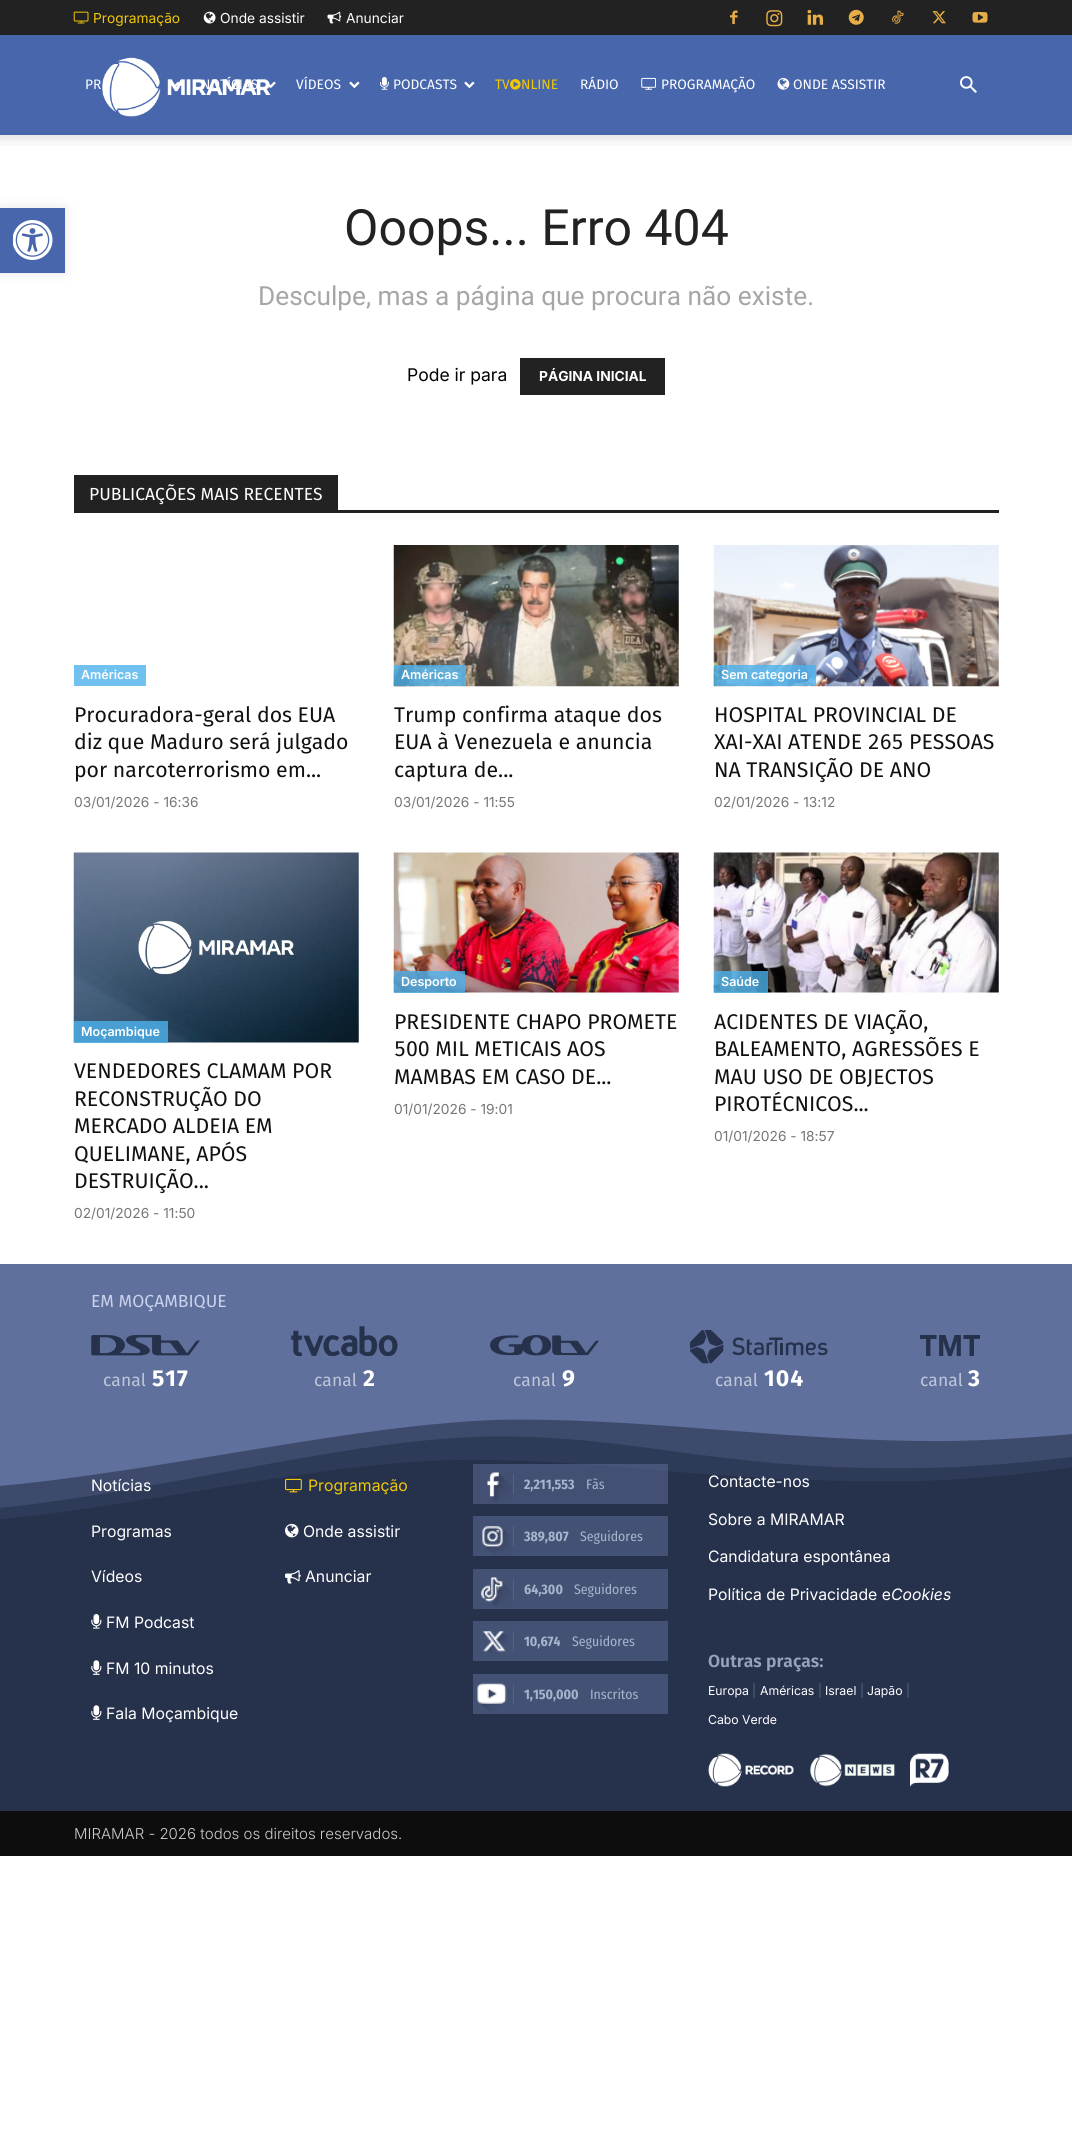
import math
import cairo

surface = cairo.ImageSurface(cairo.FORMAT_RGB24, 1072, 2144)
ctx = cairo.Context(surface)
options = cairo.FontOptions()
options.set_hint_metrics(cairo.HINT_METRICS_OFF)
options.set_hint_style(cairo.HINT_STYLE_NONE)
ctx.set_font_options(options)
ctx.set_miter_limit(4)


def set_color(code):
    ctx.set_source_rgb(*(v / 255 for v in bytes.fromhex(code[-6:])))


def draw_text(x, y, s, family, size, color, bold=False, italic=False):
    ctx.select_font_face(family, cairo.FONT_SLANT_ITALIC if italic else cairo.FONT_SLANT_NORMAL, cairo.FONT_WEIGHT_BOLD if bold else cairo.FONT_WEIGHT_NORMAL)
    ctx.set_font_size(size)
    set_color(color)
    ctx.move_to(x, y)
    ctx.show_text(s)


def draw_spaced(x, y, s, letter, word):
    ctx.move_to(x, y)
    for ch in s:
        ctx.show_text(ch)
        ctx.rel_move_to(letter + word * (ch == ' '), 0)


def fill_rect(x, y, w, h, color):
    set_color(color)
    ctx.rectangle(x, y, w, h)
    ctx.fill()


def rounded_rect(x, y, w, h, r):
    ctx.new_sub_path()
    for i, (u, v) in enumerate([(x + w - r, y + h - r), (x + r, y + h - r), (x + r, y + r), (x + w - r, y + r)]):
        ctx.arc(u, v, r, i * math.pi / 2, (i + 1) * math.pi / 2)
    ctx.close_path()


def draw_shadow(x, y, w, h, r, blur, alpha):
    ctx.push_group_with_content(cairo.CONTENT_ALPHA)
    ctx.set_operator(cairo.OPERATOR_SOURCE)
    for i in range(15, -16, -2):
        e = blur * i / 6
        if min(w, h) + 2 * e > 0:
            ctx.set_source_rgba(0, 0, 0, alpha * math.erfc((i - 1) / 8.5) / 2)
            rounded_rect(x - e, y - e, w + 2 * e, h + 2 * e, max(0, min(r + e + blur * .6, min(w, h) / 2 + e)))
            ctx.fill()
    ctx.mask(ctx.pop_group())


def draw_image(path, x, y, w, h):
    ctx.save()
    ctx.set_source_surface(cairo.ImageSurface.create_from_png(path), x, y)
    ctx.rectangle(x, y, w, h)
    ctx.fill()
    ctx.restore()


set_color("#ffffff")
ctx.paint()
set_color("#000000")
draw_shadow(0, 208, 65, 65, 0, 6, 0.1)
fill_rect(0, 208, 65, 65, "#4766ac")
draw_image("assets/img1.png", 13, 220, 40, 40)
fill_rect(0, 0, 1072, 35, "#222222")
draw_image("assets/img2.png", 73, 11, 16, 13)
draw_text(93, 23, "Programação", "Inter", 13.75, "#f0c808")
draw_image("assets/img3.png", 203, 11, 13, 13)
draw_text(220, 23, "Onde assistir", "Inter", 13.75, "#ffffff")
draw_image("assets/img4.png", 327, 11, 15, 13)
draw_text(346, 23, "Anunciar", "Inter", 13.75, "#ffffff")
draw_image("assets/img5.png", 730, 10, 8, 15)
draw_image("assets/img6.png", 766, 10, 17, 17)
draw_image("assets/img7.png", 807, 9, 17, 16)
draw_image("assets/img8.png", 848, 9, 16, 16)
draw_image("assets/img9.png", 892, 10, 12, 14)
draw_image("assets/img10.png", 932, 11, 14, 13)
draw_image("assets/img11.png", 972, 12, 16, 11)
fill_rect(0, 35, 1072, 100, "#4766ac")
draw_image("assets/img12.png", 102, 57, 169, 60)
draw_text(85, 89, "PR", "Fira Sans", 13.75, "#ffffff")
draw_image("assets/img13.png", 171, 81, 8, 6)
draw_text(201, 89, "NOTÍCIAS", "Fira Sans", 13.75, "#ffffff")
draw_image("assets/img14.png", 265, 81, 11, 8)
draw_text(296, 89, "VÍDEOS", "Fira Sans", 13.75, "#ffffff")
draw_image("assets/img15.png", 349, 81, 11, 8)
draw_image("assets/img16.png", 380, 77, 9, 13)
draw_text(393, 89, "PODCASTS", "Fira Sans", 13.75, "#ffffff")
draw_image("assets/img15.png", 464, 81, 11, 8)
draw_text(495, 89, "TV", "Fira Sans", 13.75, "#f0c808")
draw_image("assets/img17.png", 510, 79, 11, 11)
draw_text(521, 89, "NLINE", "Fira Sans", 13.75, "#f0c808")
draw_text(580, 89, "RÁDIO", "Fira Sans", 13.75, "#ffffff")
draw_image("assets/img18.png", 641, 77, 15, 13)
draw_text(661, 89, "PROGRAMAÇÃO", "Fira Sans", 13.75, "#ffffff")
draw_image("assets/img19.png", 777, 77, 13, 13)
draw_text(793, 89, "ONDE ASSISTIR", "Fira Sans", 13.75, "#ffffff")
draw_image("assets/img20.png", 960, 76, 17, 17)
draw_image("assets/img21.png", 0, 135, 1072, 11)
draw_text(344, 245, "Ooops... Erro 404", "Roboto", 50, "#222222")
draw_text(258, 305, "Desculpe, mas a página que procura não existe.", "Roboto", 26.25, "#a6a6a6")
draw_text(407, 381, "Pode ir para", "Inter", 17.5, "#000000")
fill_rect(520, 358, 145, 37, "#222222")
draw_text(539, 381, "PÁGINA INICIAL", "Inter", 13.75, "#ffffff", bold=True)
fill_rect(74, 510, 925, 3, "#222222")
fill_rect(74, 475, 264, 35, "#222222")
draw_text(89, 500, "PUBLICAÇÕES MAIS RECENTES", "Fira Sans", 17.5, "#ffffff")
fill_rect(74, 665, 72, 21, "#71c1f0")
draw_text(81, 679, "Américas", "Inter SemiBold", 12.5, "#ffffff")
draw_text(74, 722, "Procuradora-geral dos EUA", "Fira Sans", 21.25, "#111111")
draw_text(74, 749, "diz que Maduro será julgado", "Fira Sans", 21.25, "#111111")
draw_text(74, 777, "por narcoterrorismo em...", "Fira Sans", 21.25, "#111111")
draw_text(74, 807, "03/01/2026 - 16:36", "Inter", 13.75, "#767676")
draw_image("assets/img22.png", 393, 545, 286, 142)
ctx.set_source_rgba(0.302, 0.698, 0.925, 0.8)
ctx.rectangle(394, 665, 72, 21)
ctx.fill()
draw_text(401, 679, "Américas", "Inter SemiBold", 12.5, "#ffffff")
draw_text(394, 722, "Trump confirma ataque dos", "Fira Sans", 21.25, "#111111")
draw_text(394, 749, "EUA à Venezuela e anuncia", "Fira Sans", 21.25, "#111111")
draw_text(394, 777, "captura de...", "Fira Sans", 21.25, "#111111")
draw_text(394, 807, "03/01/2026 - 11:55", "Inter", 13.75, "#767676")
draw_image("assets/img23.png", 713, 545, 286, 142)
ctx.set_source_rgba(0.302, 0.698, 0.925, 0.8)
ctx.rectangle(714, 665, 102, 21)
ctx.fill()
draw_text(721, 679, "Sem categoria", "Inter SemiBold", 12.5, "#ffffff")
draw_text(714, 722, "HOSPITAL PROVINCIAL DE", "Fira Sans", 21.25, "#111111")
draw_text(714, 749, "XAI-XAI ATENDE 265 PESSOAS", "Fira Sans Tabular", 21.25, "#111111")
draw_text(714, 777, "NA TRANSIÇÃO DE ANO", "Fira Sans", 21.25, "#111111")
draw_text(714, 807, "02/01/2026 - 13:12", "Inter", 13.75, "#767676")
draw_image("assets/img24.png", 73, 852, 286, 191)
ctx.set_source_rgba(0.302, 0.698, 0.925, 0.8)
ctx.rectangle(74, 1021, 94, 22)
ctx.fill()
draw_text(81, 1036, "Moçambique", "Inter SemiBold", 12.5, "#ffffff")
draw_text(74, 1078, "VENDEDORES CLAMAM POR", "Fira Sans", 21.25, "#111111")
draw_text(74, 1106, "RECONSTRUÇÃO DO", "Fira Sans", 21.25, "#111111")
draw_text(74, 1133, "MERCADO ALDEIA EM", "Fira Sans", 21.25, "#111111")
draw_text(74, 1161, "QUELIMANE, APÓS", "Fira Sans", 21.25, "#111111")
draw_text(74, 1188, "DESTRUIÇÃO...", "Fira Sans", 21.25, "#111111")
draw_text(74, 1218, "02/01/2026 - 11:50", "Inter", 13.75, "#767676")
draw_image("assets/img25.png", 393, 852, 286, 141)
ctx.set_source_rgba(0.302, 0.698, 0.925, 0.8)
ctx.rectangle(394, 971, 71, 22)
ctx.fill()
draw_text(401, 986, "Desporto", "Inter SemiBold", 12.5, "#ffffff")
draw_text(394, 1029, "PRESIDENTE CHAPO PROMETE", "Fira Sans", 21.25, "#111111")
draw_text(394, 1056, "500 MIL METICAIS AOS", "Fira Sans Tabular", 21.25, "#111111")
draw_text(394, 1084, "MAMBAS EM CASO DE...", "Fira Sans", 21.25, "#111111")
draw_text(394, 1114, "01/01/2026 - 19:01", "Inter", 13.75, "#767676")
draw_image("assets/img26.png", 713, 852, 286, 141)
ctx.set_source_rgba(0.302, 0.698, 0.925, 0.8)
ctx.rectangle(714, 971, 54, 22)
ctx.fill()
draw_text(721, 986, "Saúde", "Inter SemiBold", 12.5, "#ffffff")
draw_text(714, 1029, "ACIDENTES DE VIAÇÃO,", "Fira Sans", 21.25, "#111111")
draw_text(714, 1056, "BALEAMENTO, AGRESSÕES E", "Fira Sans", 21.25, "#111111")
draw_text(714, 1084, "MAU USO DE OBJECTOS", "Fira Sans", 21.25, "#111111")
draw_text(714, 1111, "PIROTÉCNICOS...", "Fira Sans", 21.25, "#111111")
draw_text(714, 1141, "01/01/2026 - 18:57", "Inter", 13.75, "#767676")
fill_rect(0, 1264, 1072, 150, "#60709d")
draw_text(91, 1307, "EM MOÇAMBIQUE", "Fira Sans", 17.5, "#cad1eb")
draw_image("assets/img27.png", 91, 1335, 109, 21)
draw_text(103, 1386, "canal", "Fira Sans", 17.5, "#bfc6d8")
ctx.select_font_face("Fira Sans", cairo.FONT_SLANT_NORMAL, cairo.FONT_WEIGHT_BOLD)
ctx.set_font_size(23)
set_color("#ffffff")
draw_spaced(152, 1386, "517", 1, 0)
draw_image("assets/img28.png", 291, 1326, 107, 30)
draw_text(314, 1386, "canal", "Fira Sans", 17.5, "#bfc6d8")
ctx.select_font_face("Fira Sans", cairo.FONT_SLANT_NORMAL, cairo.FONT_WEIGHT_BOLD)
ctx.set_font_size(23)
set_color("#ffffff")
draw_spaced(363, 1386, "2", 1, 0)
draw_image("assets/img29.png", 490, 1335, 109, 21)
draw_text(513, 1386, "canal", "Fira Sans", 17.5, "#bfc6d8")
ctx.select_font_face("Fira Sans", cairo.FONT_SLANT_NORMAL, cairo.FONT_WEIGHT_BOLD)
ctx.set_font_size(23)
set_color("#ffffff")
draw_spaced(562, 1386, "9", 1, 0)
draw_image("assets/img30.png", 690, 1330, 138, 34)
draw_text(715, 1386, "canal", "Fira Sans", 17.5, "#bfc6d8")
ctx.select_font_face("Fira Sans", cairo.FONT_SLANT_NORMAL, cairo.FONT_WEIGHT_BOLD)
ctx.set_font_size(23)
set_color("#ffffff")
draw_spaced(764, 1386, "104", 1, 0)
draw_image("assets/img31.png", 920, 1335, 60, 21)
draw_text(920, 1386, "canal", "Fira Sans", 17.5, "#bfc6d8")
ctx.select_font_face("Fira Sans", cairo.FONT_SLANT_NORMAL, cairo.FONT_WEIGHT_BOLD)
ctx.set_font_size(23)
set_color("#ffffff")
draw_spaced(968, 1386, "3", 1, 0)
fill_rect(0, 1419, 1072, 392, "#26314c")
draw_image("assets/img32.png", 0, 1414, 1072, 105)
draw_text(91, 1491, "Notícias", "Inter", 15.75, "#ffffff")
draw_text(91, 1537, "Programas", "Inter", 15.75, "#ffffff")
draw_text(91, 1582, "Vídeos", "Inter", 15.75, "#ffffff")
draw_image("assets/img33.png", 91, 1614, 11, 15)
draw_text(106, 1628, "FM Podcast", "Inter", 15.75, "#ffffff")
draw_image("assets/img34.png", 91, 1660, 11, 15)
draw_text(106, 1674, "FM 10 minutos", "Inter", 15.75, "#ffffff")
draw_image("assets/img34.png", 91, 1705, 11, 15)
draw_text(106, 1719, "Fala Moçambique", "Inter", 15.75, "#ffffff")
draw_image("assets/img35.png", 285, 1478, 17, 15)
draw_text(308, 1491, "Programação", "Inter", 15.75, "#f0c808")
draw_image("assets/img36.png", 285, 1523, 14, 15)
draw_text(303, 1537, "Onde assistir", "Inter", 15.75, "#ffffff")
draw_image("assets/img37.png", 285, 1570, 16, 14)
draw_text(305, 1582, "Anunciar", "Inter", 15.75, "#ffffff")
ctx.set_source_rgba(0.376, 0.439, 0.616, 0.5)
ctx.rectangle(473, 1464, 195, 40)
ctx.fill()
draw_image("assets/img38.png", 487, 1472, 25, 30)
fill_rect(513, 1474, 1, 20, "#566282")
draw_text(524, 1489, "2,211,553", "Fira Sans Condensed", 13.75, "#a6b5cc", bold=True)
draw_text(586, 1489, "Fãs", "Fira Sans Condensed", 13.75, "#a6b5cc")
fill_rect(473, 1516, 195, 40, "#435175")
draw_image("assets/img39.png", 482, 1526, 29, 29)
fill_rect(513, 1526, 1, 20, "#566283")
draw_text(524, 1541, "389,807", "Fira Sans Condensed", 13.75, "#a6b5cc", bold=True)
draw_text(580, 1541, "Seguidores", "Fira Sans Condensed", 13.75, "#a6b5cc")
fill_rect(473, 1569, 195, 40, "#435175")
draw_image("assets/img40.png", 481, 1577, 31, 30)
fill_rect(513, 1579, 1, 20, "#566283")
draw_text(524, 1594, "64,300", "Fira Sans Condensed", 13.75, "#a6b5cc", bold=True)
draw_text(574, 1594, "Seguidores", "Fira Sans Condensed", 13.75, "#a6b5cc")
fill_rect(473, 1621, 195, 40, "#435175")
draw_image("assets/img41.png", 482, 1631, 27, 24)
fill_rect(513, 1631, 1, 20, "#566283")
draw_text(524, 1646, "10,674", "Fira Sans Condensed", 13.75, "#a6b5cc", bold=True)
draw_text(572, 1646, "Seguidores", "Fira Sans Condensed", 13.75, "#a6b5cc")
fill_rect(473, 1674, 195, 40, "#435175")
draw_image("assets/img42.png", 477, 1683, 33, 29)
fill_rect(513, 1684, 1, 20, "#566283")
draw_text(524, 1699, "1,150,000", "Fira Sans Condensed", 13.75, "#a6b5cc", bold=True)
draw_text(590, 1699, "Inscritos", "Fira Sans Condensed", 13.75, "#a6b5cc")
draw_text(708, 1487, "Contacte-nos", "Inter", 15.75, "#ffffff")
draw_text(708, 1525, "Sobre a MIRAMAR", "Inter", 15.75, "#ffffff")
draw_text(708, 1562, "Candidatura espontânea", "Inter", 15.75, "#ffffff")
draw_text(708, 1600, "Política de Privacidade e", "Inter", 15.75, "#ffffff")
draw_text(891, 1600, "Cookies", "Inter", 15.75, "#ffffff", italic=True)
draw_text(708, 1667, "Outras praças:", "Fira Sans SemiBold", 17.5, "#97a3bd")
draw_text(708, 1695, "Europa", "Inter", 12.25, "#ffffff")
draw_text(752, 1695, "|", "Inter", 12.25, "#5c6579")
draw_text(760, 1695, "Américas", "Inter", 12.25, "#ffffff")
draw_text(818, 1695, "|", "Inter", 12.25, "#5c6579")
draw_text(825, 1695, "Israel", "Inter", 12.25, "#ffffff")
draw_text(860, 1695, "|", "Inter", 12.25, "#5c6579")
draw_text(867, 1695, "Japão", "Inter", 12.25, "#ffffff")
draw_text(906, 1695, "|", "Inter", 12.25, "#5c6579")
draw_text(708, 1724, "Cabo Verde", "Inter", 12.25, "#ffffff")
draw_image("assets/img43.png", 708, 1753, 86, 34)
draw_image("assets/img44.png", 810, 1753, 85, 34)
draw_image("assets/img45.png", 910, 1753, 39, 34)
fill_rect(0, 1811, 1072, 45, "#0d0d0d")
draw_text(74, 1839, "MIRAMAR - 2026 todos os direitos reservados.", "Inter Light", 15, "#cccccc")
surface.write_to_png("output.png")
